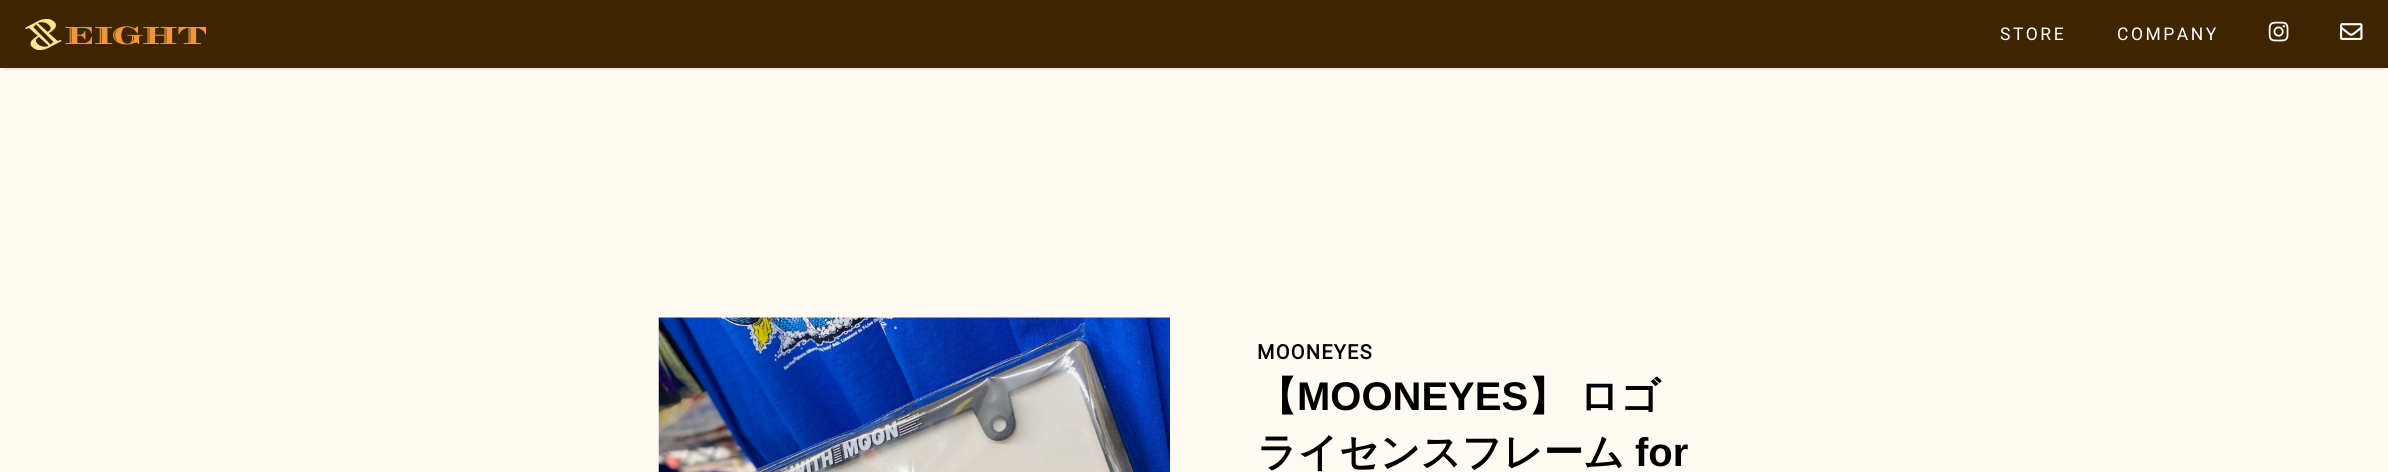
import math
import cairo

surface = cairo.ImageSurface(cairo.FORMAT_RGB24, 2388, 472)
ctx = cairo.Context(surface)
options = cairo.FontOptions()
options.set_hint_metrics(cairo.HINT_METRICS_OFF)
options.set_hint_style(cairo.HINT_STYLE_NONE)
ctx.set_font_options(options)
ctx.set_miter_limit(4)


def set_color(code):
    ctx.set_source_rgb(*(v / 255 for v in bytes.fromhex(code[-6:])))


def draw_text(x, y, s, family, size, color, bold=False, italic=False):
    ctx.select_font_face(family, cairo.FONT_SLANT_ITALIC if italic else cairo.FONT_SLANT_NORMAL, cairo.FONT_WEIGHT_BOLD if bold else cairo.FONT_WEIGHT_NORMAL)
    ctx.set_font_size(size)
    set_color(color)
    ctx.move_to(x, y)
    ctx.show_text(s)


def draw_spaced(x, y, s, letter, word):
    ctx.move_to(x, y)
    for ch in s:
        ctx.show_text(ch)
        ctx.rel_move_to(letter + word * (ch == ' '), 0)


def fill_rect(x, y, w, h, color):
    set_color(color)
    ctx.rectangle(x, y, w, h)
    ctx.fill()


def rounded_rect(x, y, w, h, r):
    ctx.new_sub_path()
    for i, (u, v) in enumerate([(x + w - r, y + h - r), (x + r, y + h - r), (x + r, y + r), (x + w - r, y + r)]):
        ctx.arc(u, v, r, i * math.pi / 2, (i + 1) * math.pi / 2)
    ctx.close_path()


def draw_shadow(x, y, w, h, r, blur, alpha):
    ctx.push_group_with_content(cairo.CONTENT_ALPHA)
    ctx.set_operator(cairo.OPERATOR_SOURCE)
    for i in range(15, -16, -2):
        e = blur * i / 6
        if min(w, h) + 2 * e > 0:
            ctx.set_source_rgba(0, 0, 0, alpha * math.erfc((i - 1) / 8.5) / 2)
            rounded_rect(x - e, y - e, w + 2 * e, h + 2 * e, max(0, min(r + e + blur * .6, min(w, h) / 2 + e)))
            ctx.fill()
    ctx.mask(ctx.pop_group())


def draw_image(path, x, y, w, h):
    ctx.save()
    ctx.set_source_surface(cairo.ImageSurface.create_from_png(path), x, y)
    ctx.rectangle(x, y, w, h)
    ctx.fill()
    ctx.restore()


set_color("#fffaf2")
ctx.paint()
set_color("#000000")
draw_shadow(4, 8, 2381, 60, 0, 2, 0.2)
fill_rect(0, 0, 2388, 68, "#3d2500")
draw_image("assets/img1.png", 25, 19, 181, 31)
ctx.select_font_face("Roboto")
ctx.set_font_size(17.5)
set_color("#ffffff")
draw_spaced(2000, 40, "STORE", 2.5, 0)
draw_spaced(2117, 40, "COMPANY", 2.5, 0)
draw_image("assets/img2.png", 2268, 21, 21, 21)
draw_image("assets/img3.png", 2340, 23, 23, 17)
draw_image("assets/img4.png", 658, 317, 512, 155)
ctx.select_font_face("Roboto", cairo.FONT_SLANT_NORMAL, cairo.FONT_WEIGHT_BOLD)
ctx.set_font_size(20)
set_color("#000000")
draw_spaced(1257, 359, "MOONEYES", 1.25, 0)
draw_text(1257, 410, "【", "WenQuanYi Zen Hei", 40, "#000000", bold=True)
draw_text(1297, 410, "MOONEYES", "Liberation Sans", 40, "#000000", bold=True)
ctx.select_font_face("WenQuanYi Zen Hei", cairo.FONT_SLANT_NORMAL, cairo.FONT_WEIGHT_BOLD)
draw_spaced(1528, 410, "】 ロゴ", 0, -1)
draw_text(1257, 466, "ライセンスフレーム", "WenQuanYi Zen Hei", 40, "#000000", bold=True)
draw_text(1635, 466, "for", "Liberation Sans", 40, "#000000", bold=True)
surface.write_to_png("output.png")
